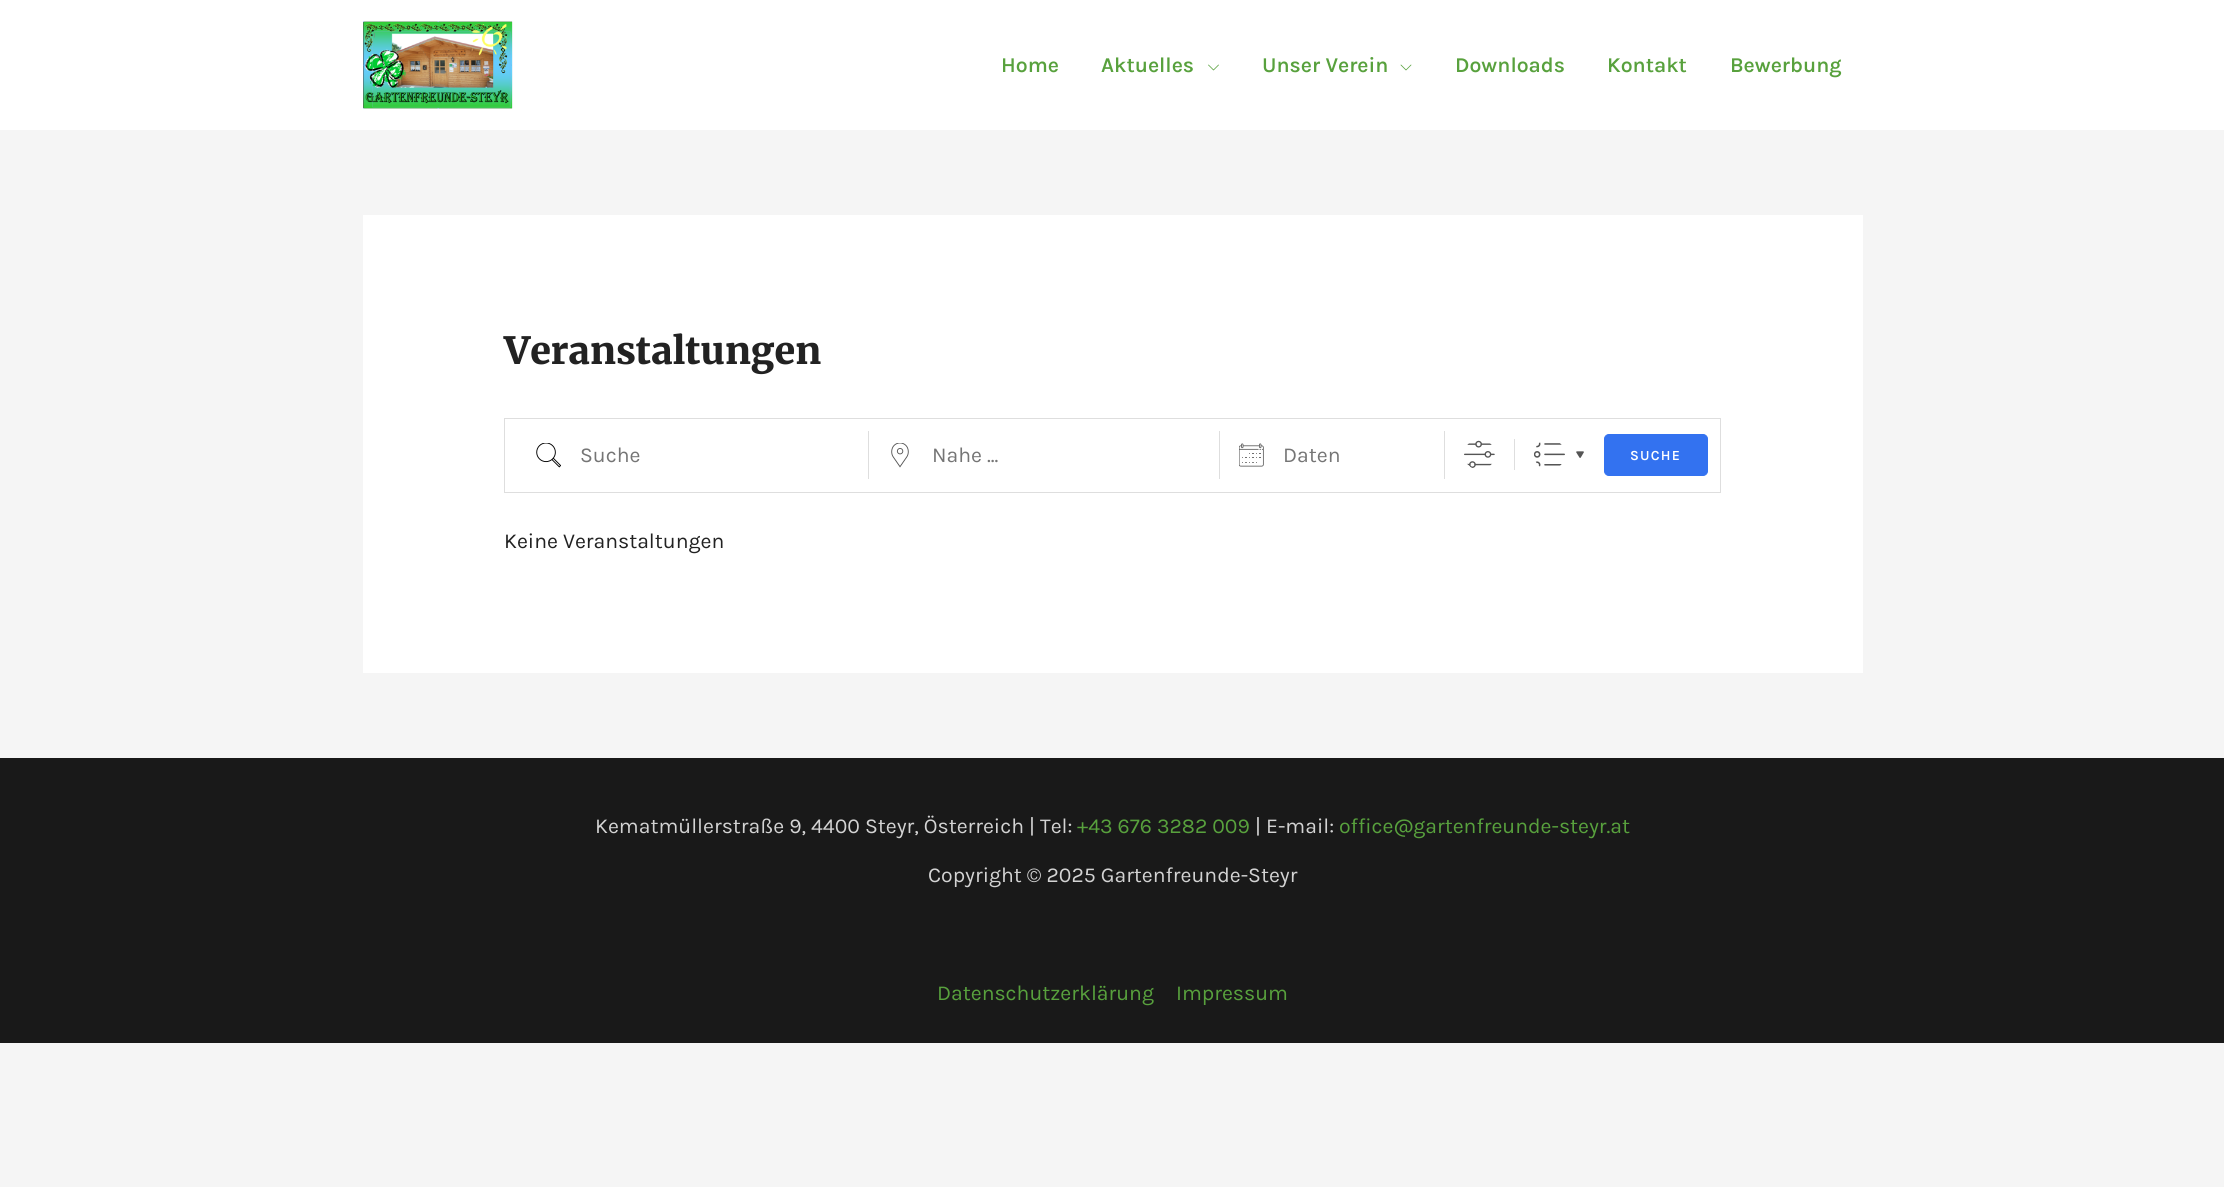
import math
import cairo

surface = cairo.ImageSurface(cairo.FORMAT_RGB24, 2224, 1187)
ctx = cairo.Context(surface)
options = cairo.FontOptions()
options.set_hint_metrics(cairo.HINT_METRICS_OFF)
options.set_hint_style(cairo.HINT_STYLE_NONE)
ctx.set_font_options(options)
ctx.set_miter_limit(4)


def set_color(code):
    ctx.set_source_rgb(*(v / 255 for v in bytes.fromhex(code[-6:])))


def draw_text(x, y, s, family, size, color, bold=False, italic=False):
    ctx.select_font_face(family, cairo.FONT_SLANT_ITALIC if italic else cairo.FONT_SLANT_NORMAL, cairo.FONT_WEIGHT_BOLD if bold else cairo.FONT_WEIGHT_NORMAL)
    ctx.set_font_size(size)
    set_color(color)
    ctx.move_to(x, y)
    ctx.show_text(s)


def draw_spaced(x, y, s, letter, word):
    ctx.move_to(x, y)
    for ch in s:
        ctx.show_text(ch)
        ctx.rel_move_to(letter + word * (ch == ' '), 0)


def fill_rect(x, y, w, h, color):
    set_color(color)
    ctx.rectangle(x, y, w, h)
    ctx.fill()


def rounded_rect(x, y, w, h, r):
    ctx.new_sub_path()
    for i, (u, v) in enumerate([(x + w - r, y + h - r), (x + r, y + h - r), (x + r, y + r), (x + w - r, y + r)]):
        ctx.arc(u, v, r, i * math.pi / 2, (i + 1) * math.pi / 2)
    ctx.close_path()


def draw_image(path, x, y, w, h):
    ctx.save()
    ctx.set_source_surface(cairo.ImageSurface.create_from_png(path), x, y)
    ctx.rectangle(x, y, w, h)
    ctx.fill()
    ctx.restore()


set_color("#f5f5f5")
ctx.paint()
fill_rect(0, 0, 2224, 130, "#ffffff")
draw_image("assets/img1.png", 363, 21, 150, 88)
draw_text(1001, 72, "Home", "Karla SemiBold", 21.25, "#58a13d")
draw_text(1101, 72, "Aktuelles", "Karla SemiBold", 21.25, "#58a13d")
draw_image("assets/img2.png", 1208, 64, 11, 7)
draw_text(1262, 72, "Unser Verein", "Karla SemiBold", 21.25, "#58a13d")
draw_image("assets/img3.png", 1400, 64, 12, 7)
draw_text(1455, 72, "Downloads", "Karla SemiBold", 21.25, "#58a13d")
draw_text(1607, 72, "Kontakt", "Karla SemiBold", 21.25, "#58a13d")
draw_text(1730, 72, "Bewerbung", "Karla SemiBold", 21.25, "#58a13d")
fill_rect(363, 215, 1500, 458, "#ffffff")
draw_text(504, 364, "Veranstaltungen", "Merriweather Black", 37.5, "#222222")
ctx.rectangle(504.5, 418.5, 1216, 74)
set_color("#dedede")
ctx.set_line_width(1)
ctx.stroke()
fill_rect(868, 431, 1, 48, "#dedede")
draw_image("assets/img4.png", 536, 443, 25, 25)
draw_text(580, 462, "Suche", "Karla", 21.25, "#757575")
fill_rect(1219, 431, 1, 48, "#dedede")
draw_image("assets/img5.png", 891, 443, 18, 25)
draw_text(932, 462, "Nahe ...", "Karla", 21.25, "#757575")
fill_rect(1444, 431, 1, 48, "#dedede")
draw_image("assets/img6.png", 1239, 443, 25, 24)
draw_text(1283, 462, "Daten", "Karla", 21.25, "#757575")
draw_image("assets/img7.png", 1464, 440, 31, 28)
fill_rect(1514, 439, 1, 31, "#dedede")
draw_image("assets/img8.png", 1576, 451, 8, 7)
draw_image("assets/img9.png", 1534, 442, 31, 25)
set_color("#3372f0")
rounded_rect(1604.5, 434.5, 103, 41, 4.5)
ctx.fill_preserve()
ctx.stroke()
ctx.select_font_face("Karla SemiBold")
ctx.set_font_size(14)
set_color("#ffffff")
draw_spaced(1630, 460, "SUCHE", 1.25, 0)
draw_text(504, 548, "Keine Veranstaltungen", "Karla", 21.25, "#222222")
fill_rect(0, 758, 2224, 285, "#191919")
draw_text(595, 833, "Kematmüllerstraße 9, 4400 Steyr, Österreich | Tel:", "Karla", 21.25, "#d3d3d3")
draw_text(1077, 833, "+43 676 3282 009", "Karla", 21.25, "#58a13d")
draw_text(1255, 833, "| E-mail:", "Karla", 21.25, "#d3d3d3")
draw_text(1339, 833, "office@gartenfreunde-steyr.at", "Karla", 21.25, "#58a13d")
draw_text(928, 882, "Copyright © 2025 Gartenfreunde-Steyr", "Karla", 21.25, "#d3d3d3")
draw_text(937, 1000, "Datenschutzerklärung", "Karla", 21.25, "#58a13d")
draw_text(1176, 1000, "Impressum", "Karla", 21.25, "#58a13d")
surface.write_to_png("output.png")
